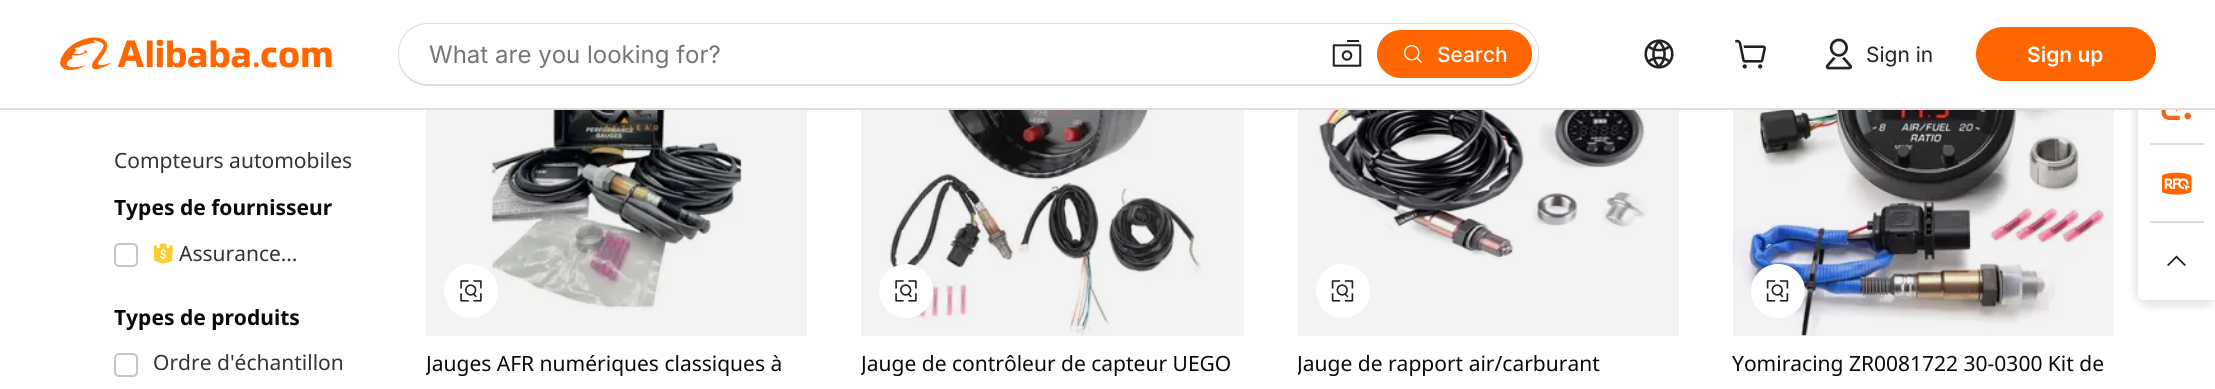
import math
import cairo

surface = cairo.ImageSurface(cairo.FORMAT_RGB24, 2215, 389)
ctx = cairo.Context(surface)
options = cairo.FontOptions()
options.set_hint_metrics(cairo.HINT_METRICS_OFF)
options.set_hint_style(cairo.HINT_STYLE_NONE)
ctx.set_font_options(options)
ctx.set_miter_limit(4)


def set_color(code):
    ctx.set_source_rgb(*(v / 255 for v in bytes.fromhex(code[-6:])))


def draw_text(x, y, s, family, size, color, bold=False, italic=False):
    ctx.select_font_face(family, cairo.FONT_SLANT_ITALIC if italic else cairo.FONT_SLANT_NORMAL, cairo.FONT_WEIGHT_BOLD if bold else cairo.FONT_WEIGHT_NORMAL)
    ctx.set_font_size(size)
    set_color(color)
    ctx.move_to(x, y)
    ctx.show_text(s)


def fill_rect(x, y, w, h, color):
    set_color(color)
    ctx.rectangle(x, y, w, h)
    ctx.fill()


def rounded_rect(x, y, w, h, r):
    ctx.new_sub_path()
    for i, (u, v) in enumerate([(x + w - r, y + h - r), (x + r, y + h - r), (x + r, y + r), (x + w - r, y + r)]):
        ctx.arc(u, v, r, i * math.pi / 2, (i + 1) * math.pi / 2)
    ctx.close_path()


def draw_shadow(x, y, w, h, r, blur, alpha):
    ctx.push_group_with_content(cairo.CONTENT_ALPHA)
    ctx.set_operator(cairo.OPERATOR_SOURCE)
    for i in range(15, -16, -2):
        e = blur * i / 6
        if min(w, h) + 2 * e > 0:
            ctx.set_source_rgba(0, 0, 0, alpha * math.erfc((i - 1) / 8.5) / 2)
            rounded_rect(x - e, y - e, w + 2 * e, h + 2 * e, max(0, min(r + e + blur * .6, min(w, h) / 2 + e)))
            ctx.fill()
    ctx.mask(ctx.pop_group())


def draw_image(path, x, y, w, h):
    ctx.save()
    ctx.set_source_surface(cairo.ImageSurface.create_from_png(path), x, y)
    ctx.rectangle(x, y, w, h)
    ctx.fill()
    ctx.restore()


set_color("#ffffff")
ctx.paint()
set_color("#000000")
draw_shadow(2135, 66, 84, 240, 15, 4.5, 0.12)
set_color("#ffffff")
ctx.new_path()
ctx.move_to(2150, 66)
ctx.line_to(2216, 66)
ctx.line_to(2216, 300)
ctx.line_to(2150, 300)
ctx.curve_to(2143.5, 300, 2138, 294.5, 2138, 288)
ctx.line_to(2138, 78)
ctx.curve_to(2138, 71.5, 2143.5, 66, 2150, 66)
ctx.close_path()
ctx.fill()
rounded_rect(2138, 66, 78, 78, 6)
ctx.fill()
fill_rect(2129, 60, 86, 48, "#ffffff")
fill_rect(0, 108, 2215, 2, "#dddddd")
draw_image("assets/img1.png", 60, 37, 272, 34)
rounded_rect(398, 23, 1141, 63, 30)
ctx.fill()
set_color("#ffffff")
rounded_rect(399, 24, 1139, 60, 29)
ctx.fill()
draw_text(429, 63, "What are you looking for?", "Inter", 24, "#767676")
draw_image("assets/img2.png", 1332, 40, 30, 27)
set_color("#ff6600")
rounded_rect(1377, 30, 155, 48, 24)
ctx.fill()
draw_image("assets/img3.png", 1404, 45, 18, 18)
draw_text(1437, 62, "Search", "Inter Medium", 21, "#ffffff")
draw_image("assets/img4.png", 1644, 39, 30, 30)
draw_image("assets/img5.png", 1735, 39, 31, 30)
draw_image("assets/img6.png", 1825, 38, 27, 32)
draw_text(1866, 62, "Sign in", "Inter", 21, "#222222")
set_color("#ff6600")
rounded_rect(1976, 27, 180, 54, 27)
ctx.fill()
draw_text(2027, 62, "Sign up", "Inter SemiBold", 21, "#ffffff")
draw_text(114, 168, "Compteurs automobiles", "Noto Sans", 21, "#333333")
draw_text(114, 215, "Types de fournisseur", "Noto Sans", 21, "#0c0a09", bold=True)
rounded_rect(115, 244, 22, 22, 4)
set_color("#c4c6cf")
ctx.stroke()
draw_image("assets/img7.png", 153, 243, 20, 21)
draw_text(179, 261, "Assurance…", "Noto Sans", 21, "#333333")
draw_text(114, 325, "Types de produits", "Noto Sans", 21, "#0c0a09", bold=True)
rounded_rect(115, 354, 22, 22, 4)
set_color("#c4c6cf")
ctx.stroke()
draw_text(153, 370, "Ordre d'échantillon", "Noto Sans", 21, "#333333")
draw_image("assets/img8.png", 491, 110, 251, 200)
ctx.set_source_rgba(0, 0, 0, 0.05)
ctx.rectangle(426, 110, 381, 226)
ctx.fill()
set_color("#ffffff")
ctx.arc(471, 291, 27, 0, 2 * math.pi)
ctx.fill()
draw_image("assets/img9.png", 460, 280, 22, 22)
ctx.save()
ctx.rectangle(426, 348, 381, 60)
ctx.clip()
draw_text(426, 371, "Jauges AFR numériques classiques à", "Noto Sans", 21, "#0c0a09")
ctx.restore()
draw_image("assets/img10.png", 881, 110, 320, 226)
ctx.set_source_rgba(0, 0, 0, 0.05)
ctx.rectangle(861, 110, 383, 226)
ctx.fill()
set_color("#ffffff")
ctx.arc(906, 291, 27, 0, 2 * math.pi)
ctx.fill()
draw_image("assets/img9.png", 895, 280, 22, 22)
ctx.save()
ctx.rectangle(861, 348, 383, 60)
ctx.clip()
draw_text(861, 371, "Jauge de contrôleur de capteur UEGO", "Noto Sans", 21, "#0c0a09")
ctx.restore()
draw_image("assets/img11.png", 1317, 110, 330, 149)
ctx.set_source_rgba(0, 0, 0, 0.05)
ctx.rectangle(1298, 110, 381, 226)
ctx.fill()
set_color("#ffffff")
ctx.arc(1343, 291, 27, 0, 2 * math.pi)
ctx.fill()
draw_image("assets/img12.png", 1331, 280, 23, 22)
ctx.save()
ctx.rectangle(1298, 348, 381, 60)
ctx.clip()
draw_text(1297, 371, "Jauge de rapport air/carburant", "Noto Sans", 21, "#0c0a09")
ctx.restore()
draw_image("assets/img13.png", 1733, 110, 376, 226)
ctx.set_source_rgba(0, 0, 0, 0.05)
ctx.rectangle(1733, 110, 381, 226)
ctx.fill()
set_color("#ffffff")
ctx.arc(1778, 291, 27, 0, 2 * math.pi)
ctx.fill()
draw_image("assets/img12.png", 1766, 280, 23, 22)
draw_text(1732, 371, "Yomiracing ZR0081722 30-0300 Kit de", "Noto Sans", 21, "#0c0a09")
draw_image("assets/img14.png", 2161, 110, 31, 10)
fill_rect(2150, 143, 54, 2, "#dddddd")
draw_image("assets/img15.png", 2162, 172, 30, 23)
set_color("#ffffff")
rounded_rect(2138, 222, 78, 78, 6)
ctx.fill()
fill_rect(2150, 221, 54, 2, "#dddddd")
set_color("#222222")
ctx.new_path()
ctx.move_to(2176.5, 255.5)
ctx.line_to(2186, 265)
ctx.line_to(2184.5, 266)
ctx.line_to(2176.5, 258)
ctx.line_to(2168.5, 266)
ctx.line_to(2167, 265)
ctx.close_path()
ctx.fill()
surface.write_to_png("output.png")
